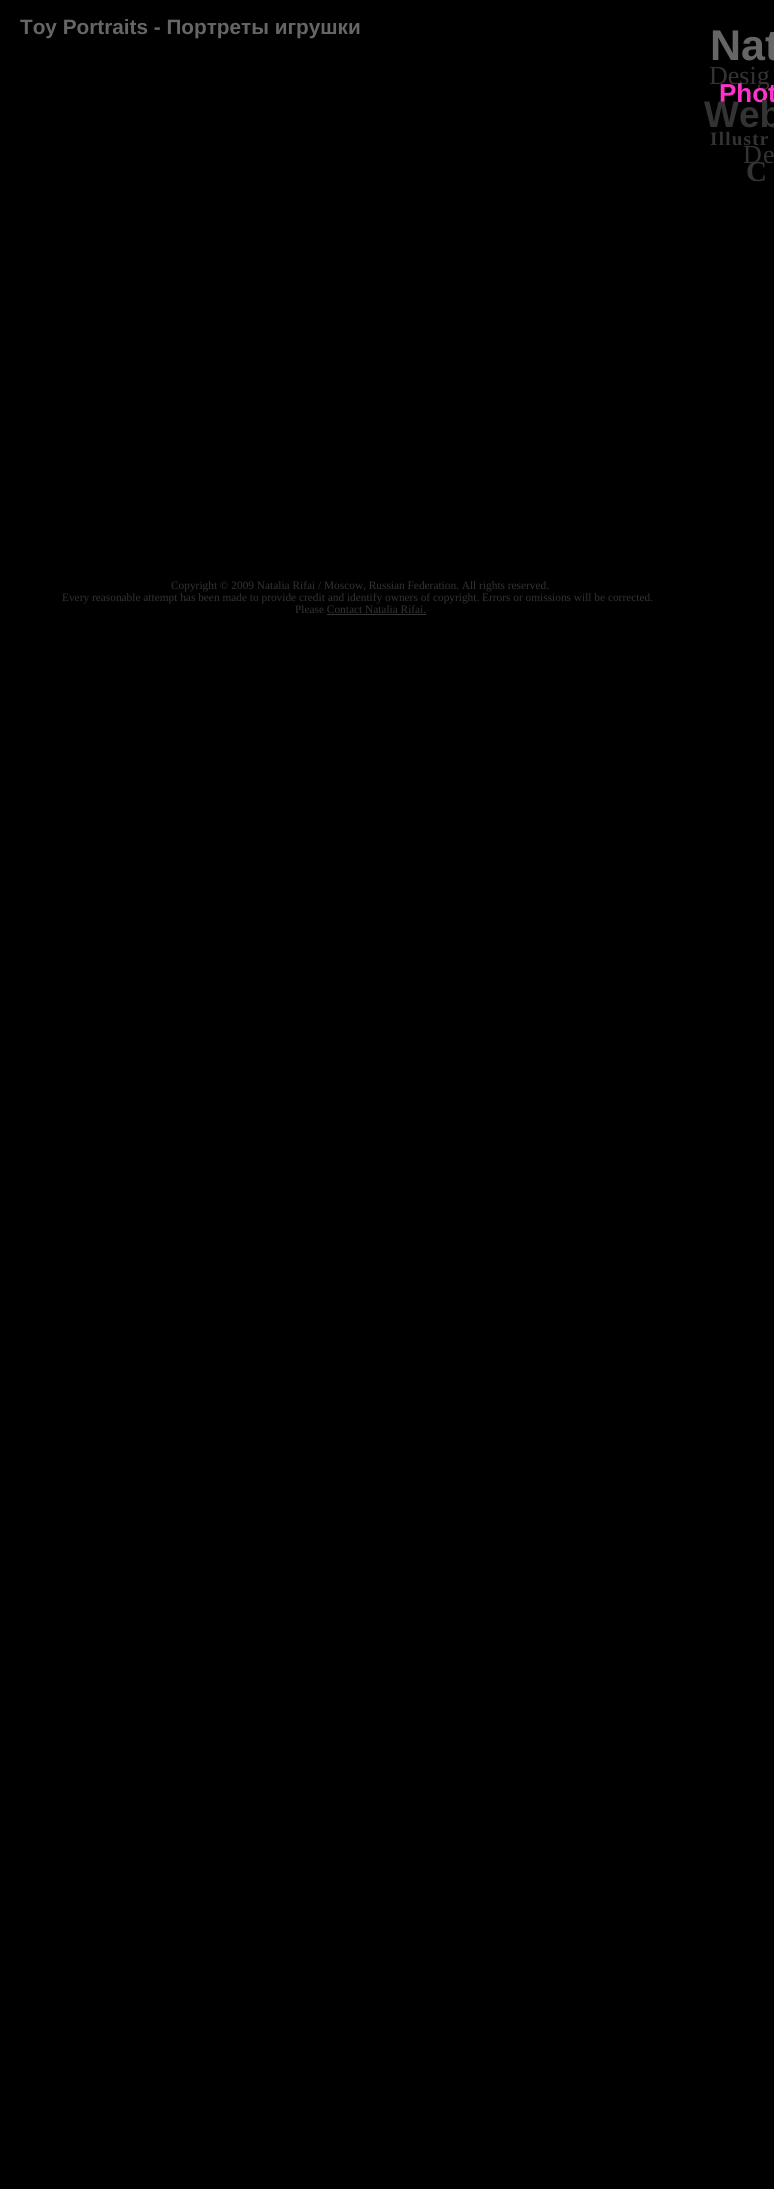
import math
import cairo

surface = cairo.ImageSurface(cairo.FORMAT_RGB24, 774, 2189)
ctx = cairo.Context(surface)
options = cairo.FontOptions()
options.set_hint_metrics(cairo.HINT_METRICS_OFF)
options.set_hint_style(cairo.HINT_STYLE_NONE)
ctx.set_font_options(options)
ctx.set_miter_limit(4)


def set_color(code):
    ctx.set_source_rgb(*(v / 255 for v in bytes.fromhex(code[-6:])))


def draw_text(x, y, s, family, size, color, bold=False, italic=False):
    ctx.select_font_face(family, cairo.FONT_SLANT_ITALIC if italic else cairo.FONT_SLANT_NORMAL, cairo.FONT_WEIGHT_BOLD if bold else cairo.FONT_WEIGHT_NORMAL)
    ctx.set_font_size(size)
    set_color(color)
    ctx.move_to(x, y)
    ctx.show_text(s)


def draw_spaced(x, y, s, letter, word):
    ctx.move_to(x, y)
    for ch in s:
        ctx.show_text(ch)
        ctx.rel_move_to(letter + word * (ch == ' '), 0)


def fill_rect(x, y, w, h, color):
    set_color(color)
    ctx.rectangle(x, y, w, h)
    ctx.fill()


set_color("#000000")
ctx.paint()
draw_text(20, 34, "Toy Portraits - Портреты игрушки", "Liberation Sans", 20.75, "#666666", bold=True)
draw_text(171, 589, "Copyright © 2009 Natalia Rifai / Moscow, Russian Federation. All rights reserved.", "Liberation Serif", 11.35, "#333333")
draw_text(62, 601, "Every reasonable attempt has been made to provide credit and identify owners of copyright. Errors or omissions will be corrected.", "Liberation Serif", 11.35, "#333333")
draw_text(295, 613, "Please Contact Natalia Rifai.", "Liberation Serif", 11.35, "#333333")
fill_rect(327, 614, 99, 1, "#333333")
draw_text(710, 60, "Nat", "Liberation Sans", 43, "#666666", bold=True)
draw_text(709, 84, "Desig", "Liberation Serif", 26, "#333333")
draw_text(719, 102, "Phot", "Liberation Sans", 26, "#ff33cc", bold=True)
draw_text(704, 127, "Web", "Liberation Sans", 37, "#333333", bold=True)
ctx.select_font_face("Liberation Serif", cairo.FONT_SLANT_NORMAL, cairo.FONT_WEIGHT_BOLD)
ctx.set_font_size(19)
draw_spaced(710, 145, "Illustr", 1.25, 0)
ctx.select_font_face("Liberation Serif")
ctx.set_font_size(26)
draw_spaced(743, 163, "De", 1.25, 0)
draw_text(746, 181, "C", "Liberation Serif", 29, "#333333", bold=True)
surface.write_to_png("output.png")
